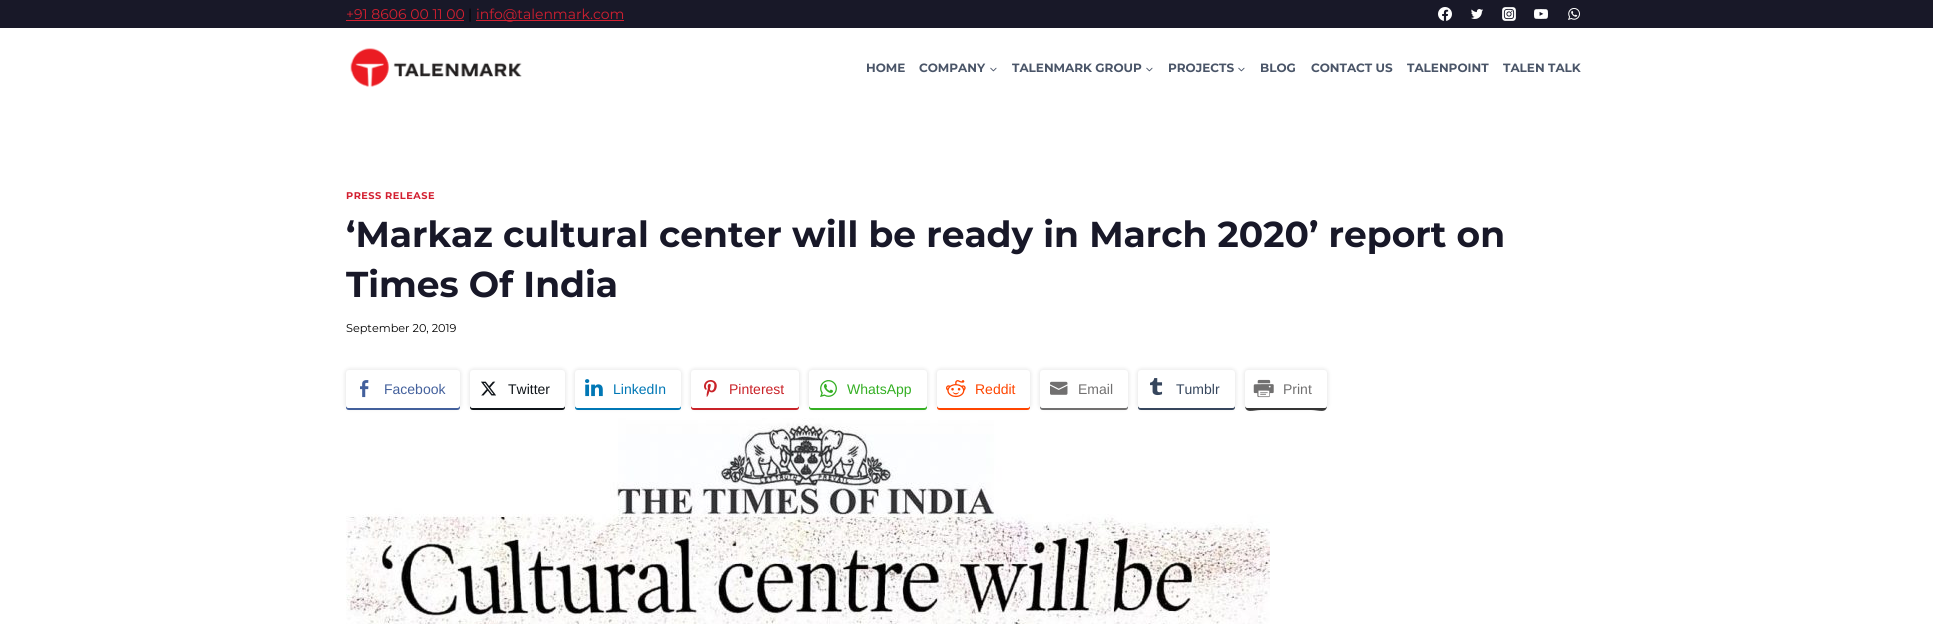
import math
import cairo

surface = cairo.ImageSurface(cairo.FORMAT_RGB24, 1933, 624)
ctx = cairo.Context(surface)
options = cairo.FontOptions()
options.set_hint_metrics(cairo.HINT_METRICS_OFF)
options.set_hint_style(cairo.HINT_STYLE_NONE)
ctx.set_font_options(options)
ctx.set_miter_limit(4)


def set_color(code):
    ctx.set_source_rgb(*(v / 255 for v in bytes.fromhex(code[-6:])))


def draw_text(x, y, s, family, size, color, bold=False, italic=False):
    ctx.select_font_face(family, cairo.FONT_SLANT_ITALIC if italic else cairo.FONT_SLANT_NORMAL, cairo.FONT_WEIGHT_BOLD if bold else cairo.FONT_WEIGHT_NORMAL)
    ctx.set_font_size(size)
    set_color(color)
    ctx.move_to(x, y)
    ctx.show_text(s)


def draw_spaced(x, y, s, letter, word):
    ctx.move_to(x, y)
    for ch in s:
        ctx.show_text(ch)
        ctx.rel_move_to(letter + word * (ch == ' '), 0)


def fill_rect(x, y, w, h, color):
    set_color(color)
    ctx.rectangle(x, y, w, h)
    ctx.fill()


def rounded_rect(x, y, w, h, r):
    ctx.new_sub_path()
    for i, (u, v) in enumerate([(x + w - r, y + h - r), (x + r, y + h - r), (x + r, y + r), (x + w - r, y + r)]):
        ctx.arc(u, v, r, i * math.pi / 2, (i + 1) * math.pi / 2)
    ctx.close_path()


def draw_shadow(x, y, w, h, r, blur, alpha):
    ctx.push_group_with_content(cairo.CONTENT_ALPHA)
    ctx.set_operator(cairo.OPERATOR_SOURCE)
    for i in range(15, -16, -2):
        e = blur * i / 6
        if min(w, h) + 2 * e > 0:
            ctx.set_source_rgba(0, 0, 0, alpha * math.erfc((i - 1) / 8.5) / 2)
            rounded_rect(x - e, y - e, w + 2 * e, h + 2 * e, max(0, min(r + e + blur * .6, min(w, h) / 2 + e)))
            ctx.fill()
    ctx.mask(ctx.pop_group())


def draw_image(path, x, y, w, h):
    ctx.save()
    ctx.set_source_surface(cairo.ImageSurface.create_from_png(path), x, y)
    ctx.rectangle(x, y, w, h)
    ctx.fill()
    ctx.restore()


set_color("#ffffff")
ctx.paint()
fill_rect(0, 0, 1933, 28, "#181828")
draw_text(346, 19, "+91 8606 00 11 00", "Montserrat", 14, "#d31f30")
fill_rect(346, 20, 118, 1, "#d31f30")
draw_text(468, 19, "|", "Montserrat", 14, "#000000")
fill_rect(476, 20, 148, 1, "#d31f30")
draw_text(476, 19, "info@talenmark.com", "Montserrat", 14, "#d31f30")
draw_image("assets/img1.png", 1438, 7, 14, 14)
draw_image("assets/img2.png", 1471, 9, 12, 10)
draw_image("assets/img3.png", 1502, 7, 14, 14)
draw_image("assets/img4.png", 1534, 9, 14, 10)
draw_image("assets/img5.png", 1568, 8, 12, 12)
draw_image("assets/img6.png", 350, 48, 172, 39)
draw_text(866, 72, "HOME", "Montserrat", 12, "#4a5568", bold=True)
draw_text(919, 72, "COMPANY", "Montserrat", 12, "#4a5568", bold=True)
draw_image("assets/img7.png", 990, 67, 7, 5)
draw_text(1012, 72, "TALENMARK GROUP", "Montserrat", 12, "#4a5568", bold=True)
draw_image("assets/img7.png", 1146, 67, 7, 5)
draw_text(1168, 72, "PROJECTS", "Montserrat", 12, "#4a5568", bold=True)
draw_image("assets/img7.png", 1238, 67, 7, 5)
draw_text(1260, 72, "BLOG", "Montserrat", 12, "#4a5568", bold=True)
draw_text(1311, 72, "CONTACT US", "Montserrat", 12, "#4a5568", bold=True)
draw_text(1407, 72, "TALENPOINT", "Montserrat", 12, "#4a5568", bold=True)
draw_text(1503, 72, "TALEN TALK", "Montserrat", 12, "#4a5568", bold=True)
ctx.set_font_size(9.75)
set_color("#d31f30")
draw_spaced(346, 199, "PRESS RELEASE", 0.5, 0)
draw_text(346, 247, "‘Markaz cultural center will be ready in March 2020’ report on", "Montserrat", 36, "#181828", bold=True)
draw_text(346, 297, "Times Of India", "Montserrat", 36, "#181828", bold=True)
draw_text(346, 332, "September 20, 2019", "Montserrat", 11.25, "#000000")
set_color("#000000")
draw_shadow(346, 370, 114, 38, 3, 2.5, 0.13)
set_color("#43609c")
ctx.new_path()
ctx.move_to(346, 405)
ctx.line_to(346, 407)
ctx.curve_to(346, 409, 347, 410, 349, 410)
ctx.line_to(457, 410)
ctx.curve_to(459, 410, 460, 409, 460, 407)
ctx.line_to(460, 405)
ctx.line_to(459, 407)
ctx.line_to(457, 408)
ctx.line_to(349, 408)
ctx.curve_to(347, 408, 346, 407, 346, 405)
ctx.close_path()
ctx.fill()
set_color("#ffffff")
rounded_rect(346, 370, 114, 38, 3)
ctx.fill()
draw_image("assets/img8.png", 360, 380, 9, 18)
draw_text(384, 394, "Facebook", "Liberation Sans", 14, "#43609c")
set_color("#000000")
draw_shadow(470, 370, 95, 38, 3, 2.5, 0.13)
set_color("#0f1419")
ctx.new_path()
ctx.move_to(470, 405)
ctx.line_to(470, 407)
ctx.curve_to(470, 409, 471, 410, 473, 410)
ctx.line_to(562, 410)
ctx.curve_to(564, 410, 565, 409, 565, 407)
ctx.line_to(565, 405)
ctx.curve_to(565, 407, 564, 408, 562, 408)
ctx.line_to(473, 408)
ctx.curve_to(471, 408, 470, 407, 470, 405)
ctx.close_path()
ctx.fill()
set_color("#ffffff")
rounded_rect(470, 370, 95, 38, 3)
ctx.fill()
draw_image("assets/img9.png", 481, 381, 15, 15)
draw_text(508, 394, "Twitter", "Liberation Sans", 14, "#0f1419")
set_color("#000000")
draw_shadow(575, 370, 106, 38, 3, 2.5, 0.13)
set_color("#0077b5")
ctx.new_path()
ctx.move_to(575, 405)
ctx.line_to(575, 407)
ctx.curve_to(575, 409, 576, 410, 578, 410)
ctx.line_to(678, 410)
ctx.curve_to(680, 410, 681, 409, 681, 407)
ctx.line_to(681, 405)
ctx.curve_to(681, 407, 680, 408, 678, 408)
ctx.line_to(578, 408)
ctx.curve_to(576, 408, 575, 407, 575, 405)
ctx.close_path()
ctx.fill()
set_color("#ffffff")
rounded_rect(575, 370, 106, 38, 3)
ctx.fill()
draw_image("assets/img10.png", 585, 379, 18, 18)
draw_text(613, 394, "LinkedIn", "Liberation Sans", 14, "#0077b5")
set_color("#000000")
draw_shadow(691, 370, 108, 38, 3, 2.5, 0.13)
set_color("#c92228")
ctx.new_path()
ctx.move_to(691, 405)
ctx.line_to(691, 407)
ctx.curve_to(691, 409, 692, 410, 694, 410)
ctx.line_to(796, 410)
ctx.curve_to(798, 410, 799, 409, 799, 407)
ctx.line_to(799, 405)
ctx.curve_to(799, 407, 798, 408, 796, 408)
ctx.line_to(694, 408)
ctx.curve_to(692, 408, 691, 407, 691, 405)
ctx.close_path()
ctx.fill()
set_color("#ffffff")
rounded_rect(691, 370, 108, 38, 3)
ctx.fill()
draw_image("assets/img11.png", 704, 380, 13, 17)
draw_text(729, 394, "Pinterest", "Liberation Sans", 14, "#c92228")
set_color("#000000")
draw_shadow(809, 370, 118, 38, 3, 2.5, 0.13)
set_color("#34af23")
ctx.new_path()
ctx.move_to(809, 405)
ctx.line_to(809, 407)
ctx.curve_to(809, 409, 810, 410, 812, 410)
ctx.line_to(924, 410)
ctx.curve_to(926, 410, 927, 409, 927, 407)
ctx.line_to(927, 405)
ctx.line_to(926, 407)
ctx.line_to(924, 408)
ctx.line_to(812, 408)
ctx.curve_to(810, 408, 809, 407, 809, 405)
ctx.close_path()
ctx.fill()
set_color("#ffffff")
rounded_rect(809, 370, 118, 38, 3)
ctx.fill()
draw_image("assets/img12.png", 820, 380, 17, 17)
draw_text(847, 394, "WhatsApp", "Liberation Sans", 14, "#34af23")
set_color("#000000")
draw_shadow(937, 370, 93, 38, 3, 2.5, 0.13)
set_color("#ff4500")
ctx.new_path()
ctx.move_to(937, 405)
ctx.line_to(937, 407)
ctx.curve_to(937, 409, 938, 410, 940, 410)
ctx.line_to(1027, 410)
ctx.curve_to(1029, 410, 1030, 409, 1030, 407)
ctx.line_to(1030, 405)
ctx.curve_to(1030, 407, 1029, 408, 1027, 408)
ctx.line_to(940, 408)
ctx.curve_to(938, 408, 937, 407, 937, 405)
ctx.close_path()
ctx.fill()
set_color("#ffffff")
rounded_rect(937, 370, 93, 38, 3)
ctx.fill()
draw_image("assets/img13.png", 946, 380, 20, 18)
draw_text(975, 394, "Reddit", "Liberation Sans", 14, "#ff4500")
set_color("#000000")
draw_shadow(1040, 370, 88, 38, 3, 2.5, 0.13)
set_color("#717070")
ctx.new_path()
ctx.move_to(1040, 405)
ctx.line_to(1040, 407)
ctx.curve_to(1040, 409, 1041, 410, 1043, 410)
ctx.line_to(1125, 410)
ctx.curve_to(1127, 410, 1128, 409, 1128, 407)
ctx.line_to(1128, 405)
ctx.curve_to(1128, 407, 1127, 408, 1125, 408)
ctx.line_to(1043, 408)
ctx.curve_to(1041, 408, 1040, 407, 1040, 405)
ctx.close_path()
ctx.fill()
set_color("#ffffff")
rounded_rect(1040, 370, 88, 38, 3)
ctx.fill()
draw_image("assets/img14.png", 1050, 381, 18, 14)
draw_text(1078, 394, "Email", "Liberation Sans", 14, "#717070")
set_color("#000000")
draw_shadow(1138, 370, 97, 38, 3, 2.5, 0.13)
set_color("#36465d")
ctx.new_path()
ctx.move_to(1138, 405)
ctx.line_to(1138, 407)
ctx.curve_to(1138, 409, 1139, 410, 1141, 410)
ctx.line_to(1232, 410)
ctx.curve_to(1234, 410, 1235, 409, 1235, 407)
ctx.line_to(1235, 405)
ctx.curve_to(1235, 407, 1234, 408, 1232, 408)
ctx.line_to(1141, 408)
ctx.curve_to(1139, 408, 1138, 407, 1138, 405)
ctx.close_path()
ctx.fill()
set_color("#ffffff")
rounded_rect(1138, 370, 97, 38, 3)
ctx.fill()
draw_image("assets/img15.png", 1150, 378, 13, 18)
draw_text(1176, 394, "Tumblr", "Liberation Sans", 14, "#36465d")
set_color("#000000")
draw_shadow(1245, 370, 82, 38, 3, 2.5, 0.13)
set_color("#353535")
ctx.new_path()
ctx.move_to(1245, 405)
ctx.curve_to(1245, 414, 1253, 410, 1261, 410)
ctx.line_to(1311, 410)
ctx.curve_to(1319, 410, 1327, 414, 1327, 405)
ctx.curve_to(1327, 407, 1326, 408, 1324, 408)
ctx.line_to(1248, 408)
ctx.curve_to(1246, 408, 1245, 407, 1245, 405)
ctx.close_path()
ctx.fill()
set_color("#ffffff")
rounded_rect(1245, 370, 82, 38, 3)
ctx.fill()
draw_image("assets/img16.png", 1253, 379, 21, 19)
draw_text(1283, 394, "Print", "Liberation Sans", 14, "#717070")
draw_image("assets/img17.png", 346, 418, 924, 206)
surface.write_to_png("output.png")
